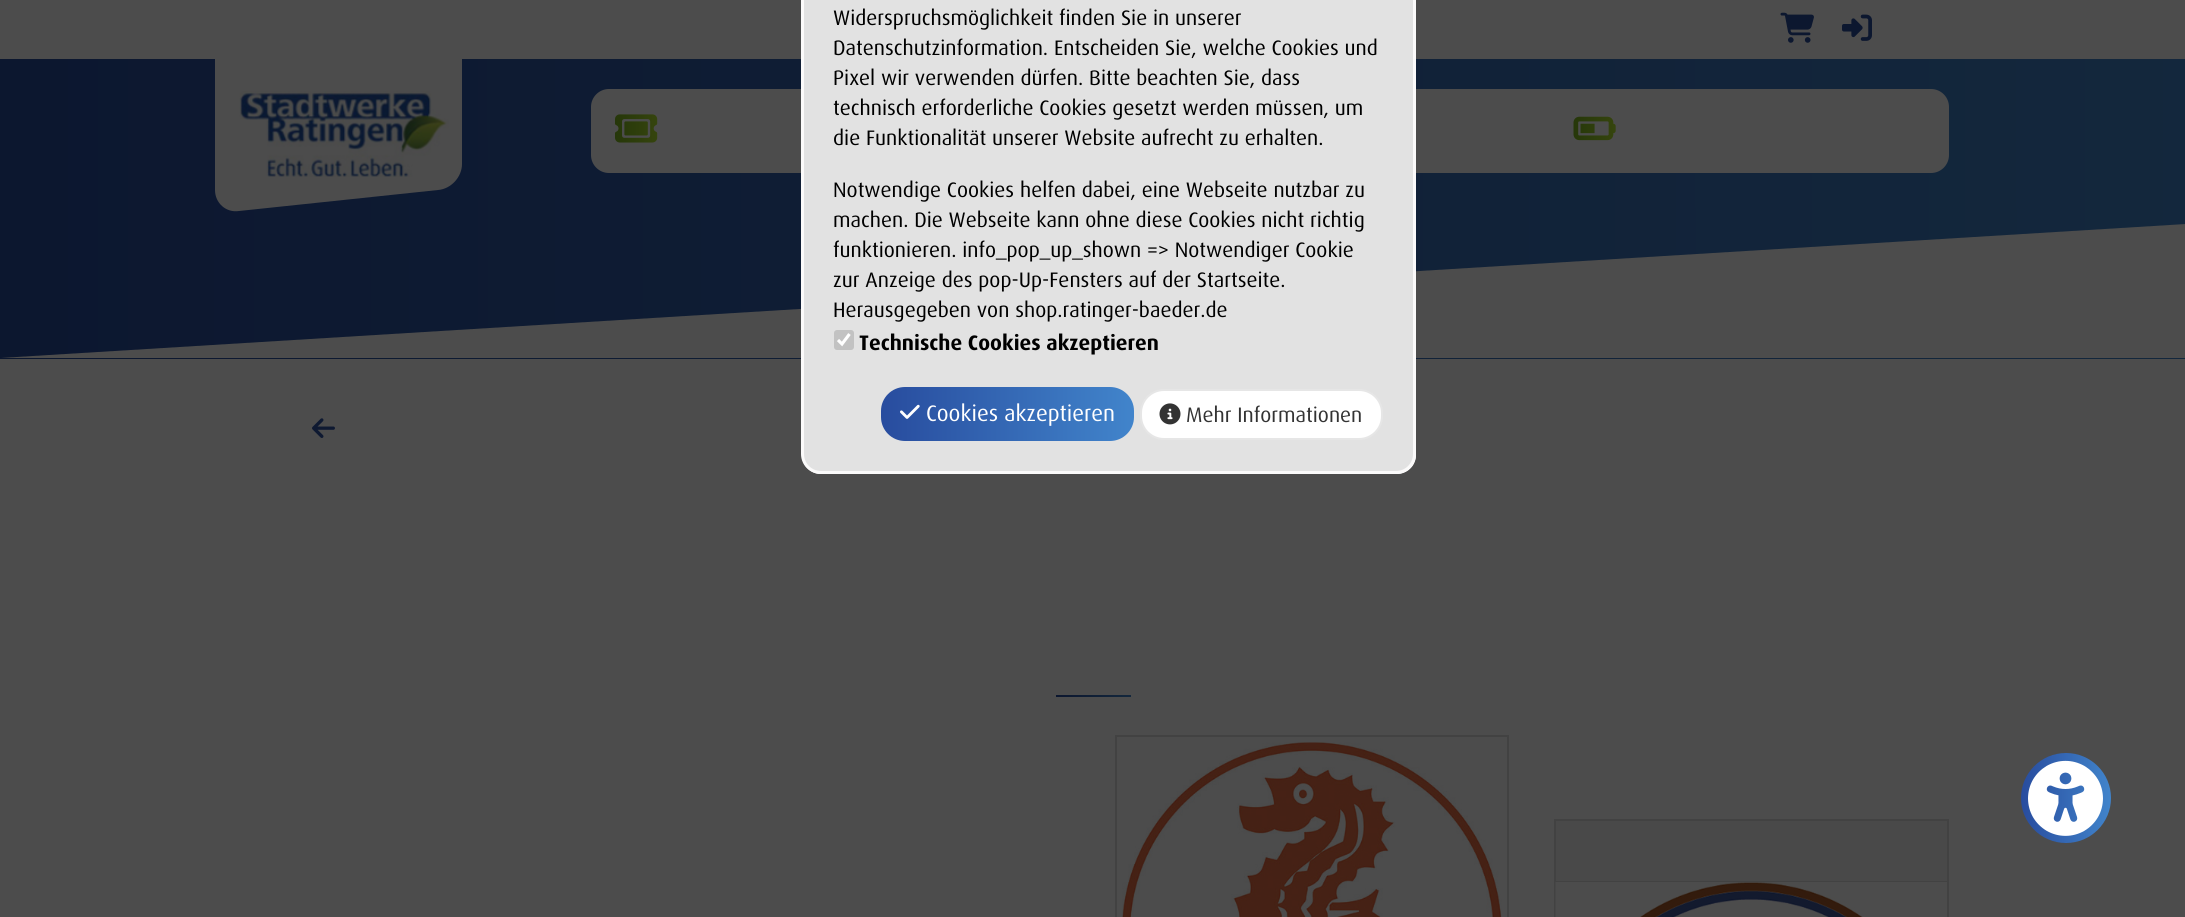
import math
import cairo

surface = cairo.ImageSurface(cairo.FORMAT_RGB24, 2185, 917)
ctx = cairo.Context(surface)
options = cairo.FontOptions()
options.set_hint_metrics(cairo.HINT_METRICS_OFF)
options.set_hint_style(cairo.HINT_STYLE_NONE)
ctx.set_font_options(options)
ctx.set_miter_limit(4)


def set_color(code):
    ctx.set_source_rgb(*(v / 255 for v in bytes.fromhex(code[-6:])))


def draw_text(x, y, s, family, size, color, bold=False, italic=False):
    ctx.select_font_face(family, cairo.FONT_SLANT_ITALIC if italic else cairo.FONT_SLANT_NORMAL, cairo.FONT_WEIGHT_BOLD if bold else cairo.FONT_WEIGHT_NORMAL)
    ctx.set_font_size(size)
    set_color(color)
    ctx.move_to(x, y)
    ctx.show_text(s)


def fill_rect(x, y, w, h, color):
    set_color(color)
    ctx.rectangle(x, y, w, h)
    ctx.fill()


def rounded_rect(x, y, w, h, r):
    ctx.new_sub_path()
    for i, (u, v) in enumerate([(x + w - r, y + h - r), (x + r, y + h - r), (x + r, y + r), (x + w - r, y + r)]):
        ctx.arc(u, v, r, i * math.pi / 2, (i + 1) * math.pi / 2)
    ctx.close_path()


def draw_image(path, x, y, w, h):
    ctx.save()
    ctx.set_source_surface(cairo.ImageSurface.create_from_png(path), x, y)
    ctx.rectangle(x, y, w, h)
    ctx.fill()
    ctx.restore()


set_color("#ffffff")
ctx.paint()
gradient = cairo.LinearGradient(0, 209, 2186, 208)
gradient.add_color_stop_rgba(0, 0.157, 0.298, 0.62, 1)
gradient.add_color_stop_rgba(1, 0.255, 0.518, 0.796, 1)
ctx.set_source(gradient)
ctx.rectangle(0, 59, 2185, 300)
ctx.fill()
set_color("#ffffff")
ctx.new_path()
ctx.move_to(215, 35)
ctx.line_to(462, 9)
ctx.line_to(462, 164)
ctx.curve_to(462, 177, 451, 189, 438, 190)
ctx.line_to(239, 211)
ctx.curve_to(226, 213, 215, 203, 215, 190)
ctx.close_path()
ctx.fill()
draw_image("assets/img3.png", 239, 91, 210, 86)
rounded_rect(591, 89, 1358, 84, 18)
ctx.fill()
draw_image("assets/img4.png", 615, 114, 43, 29)
draw_image("assets/img5.png", 1573, 116, 43, 25)
ctx.new_path()
ctx.move_to(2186, 358)
ctx.line_to(0, 358)
ctx.line_to(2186, 224)
ctx.close_path()
ctx.fill()
draw_image("assets/img6.png", 1780, 12, 34, 31)
draw_image("assets/img7.png", 1842, 14, 30, 27)
draw_image("assets/img8.png", 312, 418, 23, 20)
gradient = cairo.LinearGradient(1056, 695, 1131, 695)
gradient.add_color_stop_rgba(0, 0.157, 0.298, 0.62, 1)
gradient.add_color_stop_rgba(1, 0.255, 0.518, 0.796, 1)
ctx.set_source(gradient)
ctx.rectangle(1056, 695, 75, 2)
ctx.fill()
ctx.rectangle(1116, 736, 392, 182)
set_color("#dddddd")
ctx.stroke()
draw_image("assets/img9.png", 1122, 742, 380, 175)
ctx.rectangle(1555, 820, 393, 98)
ctx.stroke()
fill_rect(1556, 821, 391, 60, "#f5f5f5")
fill_rect(1556, 881, 391, 1, "#dddddd")
draw_image("assets/img10.png", 1555, 882, 392, 35)
rounded_rect(-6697.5, -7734.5, 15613, 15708, 7518.5)
ctx.set_source_rgba(0, 0, 0, 0.7)
ctx.set_line_width(14999)
ctx.stroke()
set_color("#e2e2e2")
rounded_rect(802.5, -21.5, 612, 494, 18.5)
ctx.fill_preserve()
set_color("#fbfafa")
ctx.set_line_width(3)
ctx.stroke()
draw_text(833, 25, "Widerspruchsmöglichkeit finden Sie in unserer", "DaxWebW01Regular", 21, "#000000")
draw_text(833, 55, "Datenschutzinformation. Entscheiden Sie, welche Cookies und", "DaxWebW01Regular", 21, "#000000")
draw_text(833, 85, "Pixel wir verwenden dürfen. Bitte beachten Sie, dass", "DaxWebW01Regular", 21, "#000000")
draw_text(833, 115, "technisch erforderliche Cookies gesetzt werden müssen, um", "DaxWebW01Regular", 21, "#000000")
draw_text(833, 145, "die Funktionalität unserer Website aufrecht zu erhalten.", "DaxWebW01Regular", 21, "#000000")
draw_text(833, 197, "Notwendige Cookies helfen dabei, eine Webseite nutzbar zu", "DaxWebW01Regular", 21, "#000000")
draw_text(833, 227, "machen. Die Webseite kann ohne diese Cookies nicht richtig", "DaxWebW01Regular", 21, "#000000")
draw_text(833, 257, "funktionieren. info_pop_up_shown => Notwendiger Cookie", "DaxWebW01Regular", 21, "#000000")
draw_text(833, 287, "zur Anzeige des pop-Up-Fensters auf der Startseite.", "DaxWebW01Regular", 21, "#000000")
draw_text(833, 317, "Herausgegeben von shop.ratinger-baeder.de", "DaxWebW01Regular", 21, "#000000")
set_color("#c2c2c2")
rounded_rect(834, 330, 20, 20, 3)
ctx.fill()
ctx.new_path()
ctx.move_to(838, 340)
ctx.line_to(842, 344)
ctx.line_to(849.5, 334)
set_color("#ffffff")
ctx.set_line_width(3.1)
ctx.stroke()
draw_text(859, 350, "Technische Cookies akzeptieren", "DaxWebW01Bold", 21, "#000000", bold=True)
ctx.save()
rounded_rect(881, 387, 253, 54, 24)
ctx.clip()
gradient = cairo.LinearGradient(381, 414, 882, 414)
gradient.add_color_stop_rgba(0, 0.157, 0.298, 0.62, 1)
gradient.add_color_stop_rgba(0.5, 0.255, 0.518, 0.796, 1)
gradient.add_color_stop_rgba(1, 0.157, 0.298, 0.62, 1)
ctx.set_source(gradient)
ctx.rectangle(881, 404, 1, 20)
ctx.fill()
gradient = cairo.LinearGradient(882, 414, 1383, 414)
gradient.add_color_stop_rgba(0, 0.157, 0.298, 0.62, 1)
gradient.add_color_stop_rgba(0.5, 0.255, 0.518, 0.796, 1)
gradient.add_color_stop_rgba(1, 0.157, 0.298, 0.62, 1)
ctx.set_source(gradient)
ctx.new_path()
ctx.move_to(882, 387)
ctx.line_to(1110, 387)
ctx.curve_to(1123.5, 387, 1134, 397.5, 1134, 411)
ctx.line_to(1134, 417)
ctx.curve_to(1134, 430.5, 1123.5, 441, 1110, 441)
ctx.line_to(882, 441)
ctx.close_path()
ctx.fill()
ctx.restore()
draw_image("assets/img1.png", 900, 404, 20, 15)
draw_text(926, 421, "Cookies akzeptieren", "DaxWebW01Regular", 22.5, "#ffffff")
rounded_rect(1141, 390, 241, 49, 23)
ctx.fill_preserve()
set_color("#e6e6e6")
ctx.set_line_width(2)
ctx.stroke()
draw_image("assets/img2.png", 1159, 403, 22, 22)
draw_text(1186, 422, "Mehr Informationen", "DaxWebW01Regular", 21, "#333333")
gradient = cairo.LinearGradient(2021, 798, 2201, 798)
gradient.add_color_stop_rgba(0, 0.157, 0.298, 0.62, 1)
gradient.add_color_stop_rgba(0.5, 0.255, 0.518, 0.796, 1)
gradient.add_color_stop_rgba(1, 0.157, 0.298, 0.62, 1)
ctx.set_source(gradient)
ctx.new_path()
ctx.arc(2066, 798, 45, 0, 2 * math.pi)
ctx.fill()
draw_image("assets/img11.png", 2028, 760, 75, 76)
surface.write_to_png("output.png")
